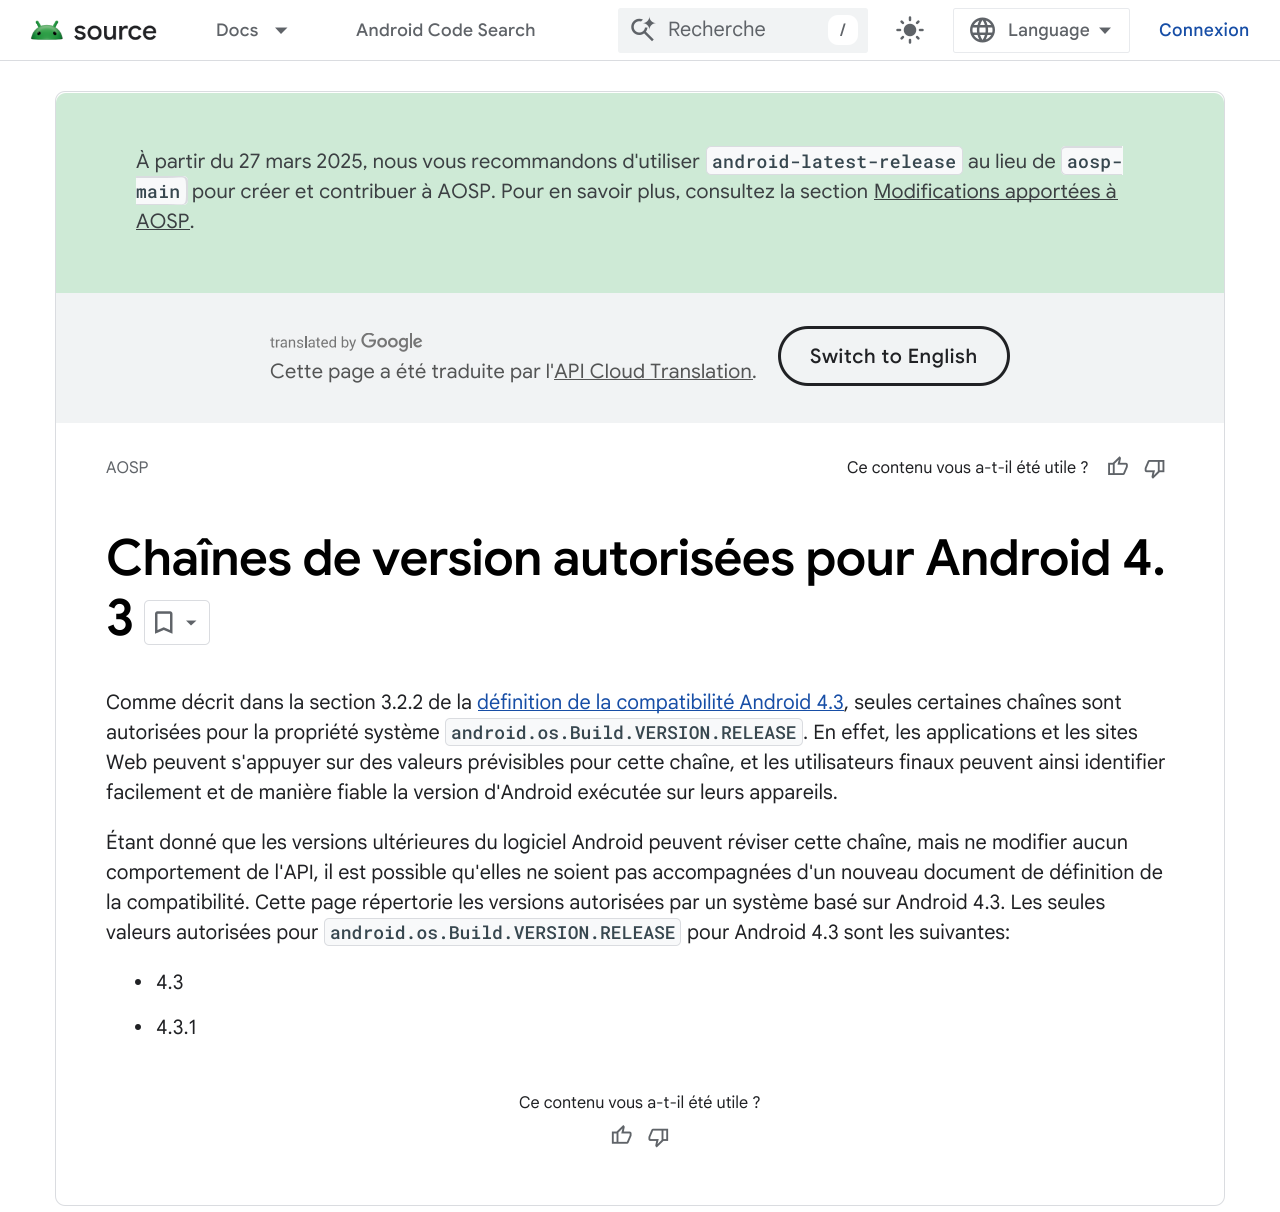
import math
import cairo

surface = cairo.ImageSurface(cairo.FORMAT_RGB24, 1280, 1212)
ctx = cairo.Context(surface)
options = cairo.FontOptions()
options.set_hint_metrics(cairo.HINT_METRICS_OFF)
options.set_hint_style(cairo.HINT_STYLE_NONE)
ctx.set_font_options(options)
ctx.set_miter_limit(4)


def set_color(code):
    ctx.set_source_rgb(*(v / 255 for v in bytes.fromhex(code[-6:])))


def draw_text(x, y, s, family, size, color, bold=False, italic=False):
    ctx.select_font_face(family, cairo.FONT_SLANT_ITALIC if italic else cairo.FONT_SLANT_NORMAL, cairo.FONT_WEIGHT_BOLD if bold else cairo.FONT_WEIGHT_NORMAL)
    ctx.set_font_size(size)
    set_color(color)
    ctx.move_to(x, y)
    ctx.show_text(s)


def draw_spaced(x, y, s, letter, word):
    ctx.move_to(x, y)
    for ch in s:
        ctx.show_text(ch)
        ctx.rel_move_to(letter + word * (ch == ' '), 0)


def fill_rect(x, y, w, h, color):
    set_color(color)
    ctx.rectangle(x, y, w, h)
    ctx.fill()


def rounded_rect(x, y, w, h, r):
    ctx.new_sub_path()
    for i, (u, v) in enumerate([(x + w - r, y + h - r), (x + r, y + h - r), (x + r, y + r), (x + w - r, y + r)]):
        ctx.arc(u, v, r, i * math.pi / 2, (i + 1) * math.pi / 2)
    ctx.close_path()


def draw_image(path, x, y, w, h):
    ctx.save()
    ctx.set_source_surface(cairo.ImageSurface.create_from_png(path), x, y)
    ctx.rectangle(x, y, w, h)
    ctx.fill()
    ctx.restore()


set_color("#ffffff")
ctx.paint()
fill_rect(0, 60, 1280, 1, "#dadce0")
draw_image("assets/img1.png", 30, 20, 127, 20)
ctx.select_font_face("Google Sans Medium")
ctx.set_font_size(17.5)
set_color("#5f6368")
draw_spaced(216, 36, "Docs", 0.3, 0)
ctx.new_path()
ctx.move_to(275, 27.5)
ctx.line_to(287.5, 27.5)
ctx.line_to(281, 34)
ctx.close_path()
ctx.fill()
draw_spaced(356, 36, "Android Code Search", 0.3, 0)
set_color("#f1f3f4")
rounded_rect(618, 8, 250, 45, 2.5)
ctx.fill()
draw_image("assets/img2.png", 631, 16, 25, 26)
draw_text(668, 36, "Recherche", "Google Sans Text", 20, "#5f6368")
set_color("#ffffff")
rounded_rect(828, 15, 30, 30, 10)
ctx.fill()
draw_text(840, 36, "/", "Google Sans Medium", 17.5, "#5f6368")
draw_image("assets/img3.png", 896, 16, 28, 28)
rounded_rect(953.5, 8.5, 176, 44, 2)
set_color("#e8eaed")
ctx.set_line_width(1)
ctx.stroke()
draw_image("assets/img4.png", 970, 17, 25, 26)
draw_text(1008, 36, "Language", "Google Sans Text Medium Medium", 17.5, "#5f6368")
ctx.new_path()
ctx.move_to(1105, 34)
ctx.line_to(1099, 27.5)
ctx.line_to(1111, 27.5)
ctx.close_path()
ctx.fill()
set_color("#174ea6")
draw_spaced(1159, 36, "Connexion", 0.3, 0)
rounded_rect(55.5, 91.5, 1169, 1114, 9.5)
set_color("#dadce0")
ctx.stroke()
set_color("#ceead6")
ctx.new_path()
ctx.move_to(66, 93)
ctx.line_to(1214, 93)
ctx.curve_to(1219.5, 93, 1224, 97.5, 1224, 103)
ctx.line_to(1224, 293)
ctx.line_to(56, 293)
ctx.line_to(56, 103)
ctx.curve_to(56, 97.5, 60.5, 93, 66, 93)
ctx.close_path()
ctx.fill()
ctx.select_font_face("Google Sans")
ctx.set_font_size(20)
set_color("#3c4043")
draw_spaced(136, 168, "À partir du 27 mars 2025, nous vous recommandons d'utiliser", 0.3, 0)
set_color("#f8f9fa")
rounded_rect(706.5, 146.5, 256, 28, 4.5)
ctx.fill_preserve()
set_color("#dadce0")
ctx.stroke()
ctx.select_font_face("Roboto Mono Medium")
ctx.set_font_size(18)
set_color("#37474f")
draw_spaced(712, 168, "android-latest-release", 0.3, 0)
ctx.select_font_face("Google Sans")
ctx.set_font_size(20)
set_color("#3c4043")
draw_spaced(968, 168, "au lieu de", 0.3, 0)
set_color("#f8f9fa")
ctx.new_path()
ctx.move_to(1066, 146)
ctx.line_to(1123, 146)
ctx.line_to(1123, 175)
ctx.line_to(1066, 175)
ctx.curve_to(1063, 175, 1061, 173, 1061, 170)
ctx.line_to(1061, 151)
ctx.curve_to(1061, 148, 1063, 146, 1066, 146)
ctx.close_path()
ctx.fill()
set_color("#dadce0")
ctx.set_fill_rule(cairo.FILL_RULE_EVEN_ODD)
ctx.new_path()
ctx.move_to(1066, 146)
ctx.line_to(1122, 146)
ctx.line_to(1122, 175)
ctx.line_to(1066, 175)
ctx.curve_to(1063, 175, 1061, 173, 1061, 170)
ctx.line_to(1061, 151)
ctx.curve_to(1061, 148, 1063, 146, 1066, 146)
ctx.close_path()
ctx.move_to(1066, 148)
ctx.line_to(1122, 148)
ctx.line_to(1122, 174)
ctx.line_to(1066, 174)
ctx.curve_to(1064, 174, 1062, 172, 1062, 170)
ctx.line_to(1062, 151)
ctx.curve_to(1062, 149, 1064, 148, 1066, 148)
ctx.close_path()
ctx.fill()
ctx.select_font_face("Roboto Mono Medium")
ctx.set_font_size(18)
set_color("#37474f")
draw_spaced(1067, 168, "aosp-", 0.3, 0)
set_color("#f8f9fa")
ctx.new_path()
ctx.move_to(136, 176)
ctx.line_to(183, 176)
ctx.curve_to(186, 176, 188, 178, 188, 181)
ctx.line_to(188, 200)
ctx.curve_to(188, 203, 186, 205, 183, 205)
ctx.line_to(136, 205)
ctx.close_path()
ctx.fill()
set_color("#dadce0")
ctx.new_path()
ctx.move_to(136, 176)
ctx.line_to(182, 176)
ctx.curve_to(185, 176, 188, 178, 188, 181)
ctx.line_to(188, 200)
ctx.curve_to(188, 203, 185, 205, 182, 205)
ctx.line_to(136, 205)
ctx.close_path()
ctx.move_to(136, 178)
ctx.line_to(167, 178)
ctx.curve_to(186, 178, 186, 173, 186, 191)
ctx.curve_to(186, 208, 186, 204, 167, 204)
ctx.line_to(136, 204)
ctx.close_path()
ctx.fill()
set_color("#37474f")
draw_spaced(136, 198, "main", 0.3, 0)
ctx.select_font_face("Google Sans")
ctx.set_font_size(20)
set_color("#3c4043")
draw_spaced(192, 198, "pour créer et contribuer à AOSP. Pour en savoir plus, consultez la section", 0.3, 0)
fill_rect(874, 199, 244, 1, "#3c4043")
draw_spaced(874, 198, "Modifications apportées à", 0.3, 0)
draw_spaced(136, 228, "AOSP.", 0.3, 0)
fill_rect(136, 229, 54, 1, "#3c4043")
fill_rect(56, 293, 1168, 130, "#f1f3f4")
rounded_rect(779.5, 327.5, 229, 57, 28.5)
set_color("#202124")
ctx.set_line_width(3)
ctx.stroke()
ctx.select_font_face("Google Sans Medium")
draw_spaced(810, 363, "Switch to English", 0.6, 0)
draw_image("assets/img5.png", 270, 333, 153, 19)
ctx.select_font_face("Google Sans")
set_color("#545555")
draw_spaced(270, 378, "Cette page a été traduite par l'API Cloud Translation.", 0.3, 0)
fill_rect(554, 379, 199, 1, "#545555")
draw_text(106, 473, "AOSP", "Google Sans Text", 16.25, "#5f6368")
draw_text(847, 473, "Ce contenu vous a-t-il été utile ?", "Google Sans Text", 16.25, "#202124")
draw_image("assets/img6.png", 1108, 456, 20, 19)
draw_image("assets/img7.png", 1144, 460, 21, 19)
ctx.select_font_face("Google Sans SemiBold")
ctx.set_font_size(50)
set_color("#000000")
draw_spaced(106, 575, "Chaînes de version autorisées pour Android 4.", -0.6, 0)
draw_spaced(106, 635, "3", -0.6, 0)
rounded_rect(144.5, 600.5, 65, 44, 4.5)
set_color("#dadce0")
ctx.set_line_width(1)
ctx.stroke()
draw_image("assets/img8.png", 155, 611, 18, 23)
set_color("#5f6368")
ctx.set_fill_rule(cairo.FILL_RULE_WINDING)
ctx.new_path()
ctx.move_to(186, 620.5)
ctx.line_to(196.5, 620.5)
ctx.line_to(191, 625.5)
ctx.close_path()
ctx.fill()
draw_text(106, 709, "Comme décrit dans la section 3.2.2 de la", "Google Sans Text", 20, "#202124")
fill_rect(478, 710, 366, 1, "#174ea6")
draw_text(477, 709, "définition de la compatibilité Android 4.3", "Google Sans Text", 20, "#174ea6")
draw_text(844, 709, ", seules certaines chaînes sont", "Google Sans Text", 20, "#202124")
draw_text(106, 739, "autorisées pour la propriété système", "Google Sans Text", 20, "#202124")
set_color("#f8f9fa")
rounded_rect(445.5, 718.5, 357, 27, 4.5)
ctx.fill_preserve()
set_color("#dadce0")
ctx.stroke()
draw_text(451, 739, "android.os.Build.VERSION.RELEASE", "Roboto Mono Medium", 18, "#37474f")
draw_text(803, 739, ". En effet, les applications et les sites", "Google Sans Text", 20, "#202124")
draw_text(106, 769, "Web peuvent s'appuyer sur des valeurs prévisibles pour cette chaîne, et les utilisateurs finaux peuvent ainsi identifier", "Google Sans Text", 20, "#202124")
draw_text(106, 799, "facilement et de manière fiable la version d'Android exécutée sur leurs appareils.", "Google Sans Text", 20, "#202124")
draw_text(106, 849, "Étant donné que les versions ultérieures du logiciel Android peuvent réviser cette chaîne, mais ne modifier aucun", "Google Sans Text", 20, "#202124")
draw_text(106, 879, "comportement de l'API, il est possible qu'elles ne soient pas accompagnées d'un nouveau document de définition de", "Google Sans Text", 20, "#202124")
draw_text(106, 909, "la compatibilité. Cette page répertorie les versions autorisées par un système basé sur Android 4.3. Les seules", "Google Sans Text", 20, "#202124")
draw_text(106, 939, "valeurs autorisées pour", "Google Sans Text", 20, "#202124")
set_color("#f8f9fa")
rounded_rect(324.5, 918.5, 356, 27, 4.5)
ctx.fill_preserve()
set_color("#dadce0")
ctx.stroke()
draw_text(330, 939, "android.os.Build.VERSION.RELEASE", "Roboto Mono Medium", 18, "#37474f")
draw_text(687, 939, "pour Android 4.3 sont les suivantes:", "Google Sans Text", 20, "#202124")
ctx.new_path()
ctx.arc(138, 982, 3, 0, 2 * math.pi)
ctx.fill()
draw_text(156, 989, "4.3", "Google Sans Text", 20, "#202124")
ctx.new_path()
ctx.arc(138, 1027, 3, 0, 2 * math.pi)
ctx.fill()
draw_text(156, 1034, "4.3.1", "Google Sans Text", 20, "#202124")
draw_text(519, 1108, "Ce contenu vous a-t-il été utile ?", "Google Sans Text", 16.25, "#202124")
draw_image("assets/img9.png", 611, 1125, 21, 19)
draw_image("assets/img10.png", 648, 1128, 21, 20)
surface.write_to_png("output.png")
